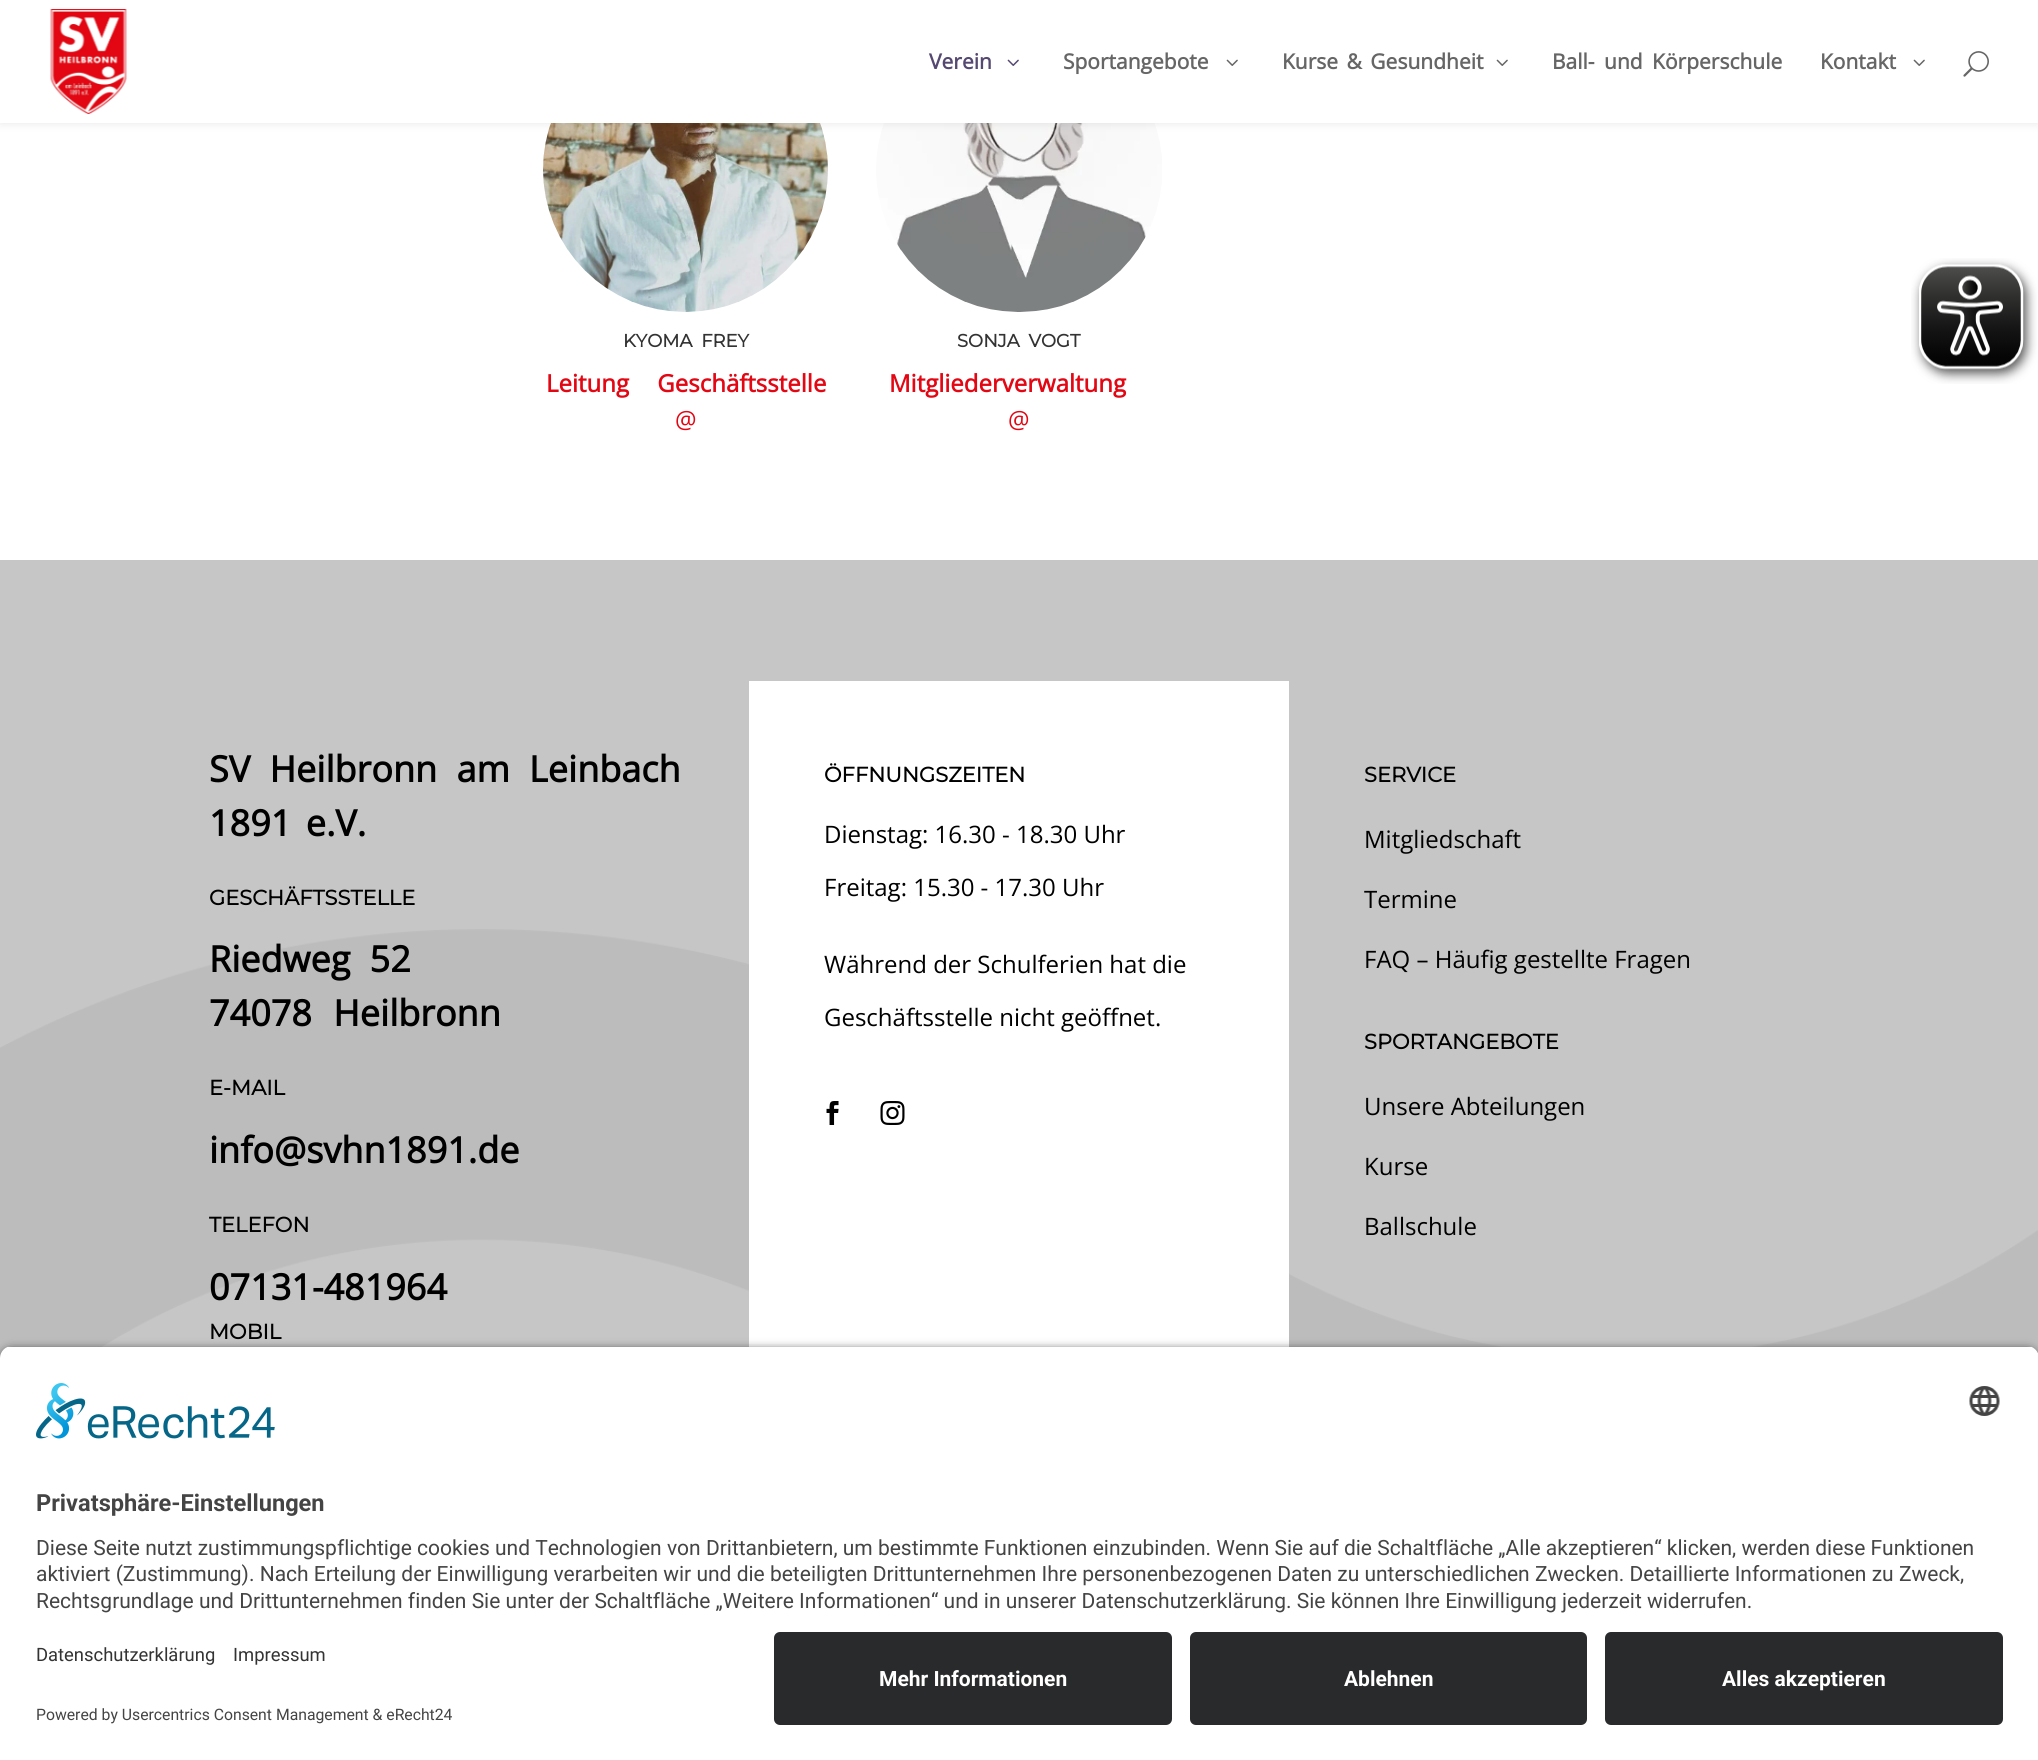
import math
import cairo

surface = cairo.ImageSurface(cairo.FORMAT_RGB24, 2038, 1760)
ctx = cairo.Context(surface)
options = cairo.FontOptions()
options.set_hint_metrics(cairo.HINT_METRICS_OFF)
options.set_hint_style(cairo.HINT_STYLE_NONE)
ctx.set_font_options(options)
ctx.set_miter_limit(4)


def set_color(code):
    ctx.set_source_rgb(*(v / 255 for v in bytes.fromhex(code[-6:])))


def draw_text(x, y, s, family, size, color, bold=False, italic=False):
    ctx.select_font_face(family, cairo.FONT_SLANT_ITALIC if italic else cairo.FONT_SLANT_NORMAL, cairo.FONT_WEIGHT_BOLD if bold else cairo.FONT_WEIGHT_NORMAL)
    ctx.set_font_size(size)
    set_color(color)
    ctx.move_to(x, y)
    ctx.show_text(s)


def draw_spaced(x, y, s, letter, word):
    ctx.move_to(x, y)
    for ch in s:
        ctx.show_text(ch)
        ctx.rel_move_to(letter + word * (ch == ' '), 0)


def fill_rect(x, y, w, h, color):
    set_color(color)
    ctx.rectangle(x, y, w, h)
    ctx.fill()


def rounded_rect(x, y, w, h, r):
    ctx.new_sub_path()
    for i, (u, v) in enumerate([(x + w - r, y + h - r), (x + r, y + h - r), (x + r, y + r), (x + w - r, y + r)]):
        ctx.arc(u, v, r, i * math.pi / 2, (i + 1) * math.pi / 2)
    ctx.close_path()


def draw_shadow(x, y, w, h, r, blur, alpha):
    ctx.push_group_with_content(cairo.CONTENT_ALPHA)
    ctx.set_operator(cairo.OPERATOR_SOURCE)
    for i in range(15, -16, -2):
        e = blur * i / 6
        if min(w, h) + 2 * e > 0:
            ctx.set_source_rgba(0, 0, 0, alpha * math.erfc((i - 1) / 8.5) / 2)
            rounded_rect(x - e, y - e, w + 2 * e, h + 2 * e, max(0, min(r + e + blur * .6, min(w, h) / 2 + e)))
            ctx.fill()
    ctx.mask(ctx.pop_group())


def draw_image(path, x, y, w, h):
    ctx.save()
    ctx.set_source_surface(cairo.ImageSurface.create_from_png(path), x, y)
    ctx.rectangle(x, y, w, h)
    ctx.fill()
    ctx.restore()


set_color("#ffffff")
ctx.paint()
draw_image("assets/img5.png", 543, 123, 285, 189)
draw_image("assets/img6.png", 876, 123, 286, 189)
set_color("#000000")
draw_shadow(0, 0, 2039, 123, 0, 5, 0.1)
fill_rect(0, 0, 2038, 123, "#ffffff")
draw_image("assets/img1.png", 50, 9, 77, 105)
draw_text(929, 69, "Verein", "Open Sans", 21, "#554971", bold=True)
draw_image("assets/img2.png", 1007, 59, 12, 7)
draw_text(1063, 69, "Sportangebote", "Open Sans", 21, "#666666", bold=True)
draw_image("assets/img3.png", 1226, 59, 12, 7)
draw_spaced(1282, 69, "Kurse & Gesundheit", 0, 3)
draw_image("assets/img3.png", 1496, 59, 12, 7)
draw_spaced(1552, 69, "Ball- und Körperschule", 0, 4)
draw_text(1820, 69, "Kontakt", "Open Sans", 21, "#666666", bold=True)
draw_image("assets/img3.png", 1913, 59, 12, 7)
draw_image("assets/img4.png", 1963, 51, 26, 26)
ctx.select_font_face("Montserrat", cairo.FONT_SLANT_NORMAL, cairo.FONT_WEIGHT_BOLD)
ctx.set_font_size(18)
set_color("#333333")
draw_spaced(623, 347, "KYOMA FREY", 0, 4)
ctx.select_font_face("Open Sans", cairo.FONT_SLANT_NORMAL, cairo.FONT_WEIGHT_BOLD)
ctx.set_font_size(24)
set_color("#e30613")
draw_spaced(546, 392, "Leitung Geschäftsstelle", 0, 22)
draw_text(675, 428, "@", "Open Sans", 24, "#e30613")
ctx.select_font_face("Montserrat", cairo.FONT_SLANT_NORMAL, cairo.FONT_WEIGHT_BOLD)
ctx.set_font_size(18)
set_color("#333333")
draw_spaced(957, 347, "SONJA VOGT", 0, 4)
draw_text(889, 392, "Mitgliederverwaltung", "Open Sans", 24, "#e30613", bold=True)
draw_text(1008, 428, "@", "Open Sans", 24, "#e30613")
fill_rect(0, 560, 2038, 798, "#c6c6c6")
draw_image("assets/img7.png", 0, 929, 2038, 429)
ctx.select_font_face("Open Sans", cairo.FONT_SLANT_NORMAL, cairo.FONT_WEIGHT_BOLD)
ctx.set_font_size(36)
set_color("#000000")
draw_spaced(209, 782, "SV Heilbronn am Leinbach", 0, 10)
draw_spaced(209, 836, "1891 e.V.", 0, 5)
draw_text(209, 905, "GESCHÄFTSSTELLE", "Montserrat", 21, "#000000", bold=True)
ctx.select_font_face("Open Sans", cairo.FONT_SLANT_NORMAL, cairo.FONT_WEIGHT_BOLD)
ctx.set_font_size(36)
draw_spaced(209, 972, "Riedweg 52", 0, 10)
draw_spaced(209, 1026, "74078 Heilbronn", 0, 12)
draw_text(209, 1095, "E-MAIL", "Montserrat", 21, "#000000", bold=True)
draw_text(209, 1163, "info@svhn1891.de", "Open Sans", 36, "#000000", bold=True)
draw_text(209, 1232, "TELEFON", "Montserrat", 21, "#000000", bold=True)
draw_text(209, 1300, "07131-481964", "Open Sans", 36, "#000000", bold=True)
draw_text(209, 1339, "MOBIL", "Montserrat", 21, "#000000", bold=True)
fill_rect(749, 681, 540, 666, "#ffffff")
draw_text(824, 782, "ÖFFNUNGSZEITEN", "Montserrat", 21, "#000000", bold=True)
draw_text(824, 843, "Dienstag: 16.30 - 18.30 Uhr", "Open Sans", 24, "#000000")
draw_text(824, 896, "Freitag: 15.30 - 17.30 Uhr", "Open Sans", 24, "#000000")
draw_text(824, 973, "Während der Schulferien hat die", "Open Sans", 24, "#000000")
draw_text(824, 1026, "Geschäftsstelle nicht geöffnet.", "Open Sans", 24, "#000000")
draw_image("assets/img8.png", 826, 1101, 13, 24)
draw_image("assets/img9.png", 880, 1101, 25, 24)
draw_text(1364, 782, "SERVICE", "Montserrat", 21, "#000000", bold=True)
draw_text(1364, 848, "Mitgliedschaft", "Open Sans", 24, "#000000")
draw_text(1364, 908, "Termine", "Open Sans", 24, "#000000")
draw_text(1364, 968, "FAQ – Häufig gestellte Fragen", "Open Sans", 24, "#000000")
draw_text(1364, 1049, "SPORTANGEBOTE", "Montserrat", 21, "#000000", bold=True)
draw_text(1364, 1115, "Unsere Abteilungen", "Open Sans", 24, "#000000")
draw_text(1364, 1175, "Kurse", "Open Sans", 24, "#000000")
draw_text(1364, 1235, "Ballschule", "Open Sans", 24, "#000000")
draw_image("assets/img10.png", 1911, 258, 126, 126)
set_color("#000000")
draw_shadow(0, 1350, 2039, 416, 12, 5, 0.8)
ctx.save()
ctx.new_path()
ctx.move_to(12, 1346)
ctx.line_to(2027, 1346)
ctx.curve_to(2033.5, 1346, 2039, 1351.5, 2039, 1358)
ctx.line_to(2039, 1620)
ctx.line_to(0, 1620)
ctx.line_to(0, 1358)
ctx.curve_to(0, 1351.5, 5.5, 1346, 12, 1346)
ctx.close_path()
ctx.clip()
fill_rect(0, 1347, 2038, 273, "#ffffff")
ctx.restore()
draw_image("assets/img11.png", 36, 1383, 239, 56)
draw_image("assets/img12.png", 1969, 1386, 31, 30)
draw_text(36, 1511, "Privatsphäre-Einstellungen", "Roboto", 23.6, "#444444", bold=True)
draw_text(36, 1555, "Diese Seite nutzt zustimmungspflichtige cookies und Technologien von Drittanbietern, um bestimmte Funktionen einzubinden. Wenn Sie auf die Schaltfläche „Alle akzeptieren“ klicken, werden diese Funktionen", "Roboto", 21, "#444444")
draw_text(36, 1581, "aktiviert (Zustimmung). Nach Erteilung der Einwilligung verarbeiten wir und die beteiligten Drittunternehmen Ihre personenbezogenen Daten zu unterschiedlichen Zwecken. Detaillierte Informationen zu Zweck,", "Roboto", 21, "#444444")
draw_text(36, 1608, "Rechtsgrundlage und Drittunternehmen finden Sie unter der Schaltfläche „Weitere Informationen“ und in unserer Datenschutzerklärung. Sie können Ihre Einwilligung jederzeit widerrufen.", "Roboto", 21, "#444444")
fill_rect(0, 1620, 2038, 140, "#ffffff")
draw_text(36, 1661, "Datenschutzerklärung", "Roboto", 18.4, "#333333")
draw_text(233, 1661, "Impressum", "Roboto", 18.4, "#333333")
draw_text(36, 1720, "Powered by Usercentrics Consent Management & eRecht24", "Roboto", 15.75, "#444444")
set_color("#292a2b")
rounded_rect(774, 1632, 398, 93, 6)
ctx.fill()
draw_text(879, 1686, "Mehr Informationen", "Roboto", 21, "#ffffff", bold=True)
set_color("#292a2b")
rounded_rect(1190, 1632, 397, 93, 6)
ctx.fill()
draw_text(1344, 1686, "Ablehnen", "Roboto", 21, "#ffffff", bold=True)
set_color("#292a2b")
rounded_rect(1605, 1632, 398, 93, 6)
ctx.fill()
draw_text(1722, 1686, "Alles akzeptieren", "Roboto", 21, "#ffffff", bold=True)
surface.write_to_png("output.png")
